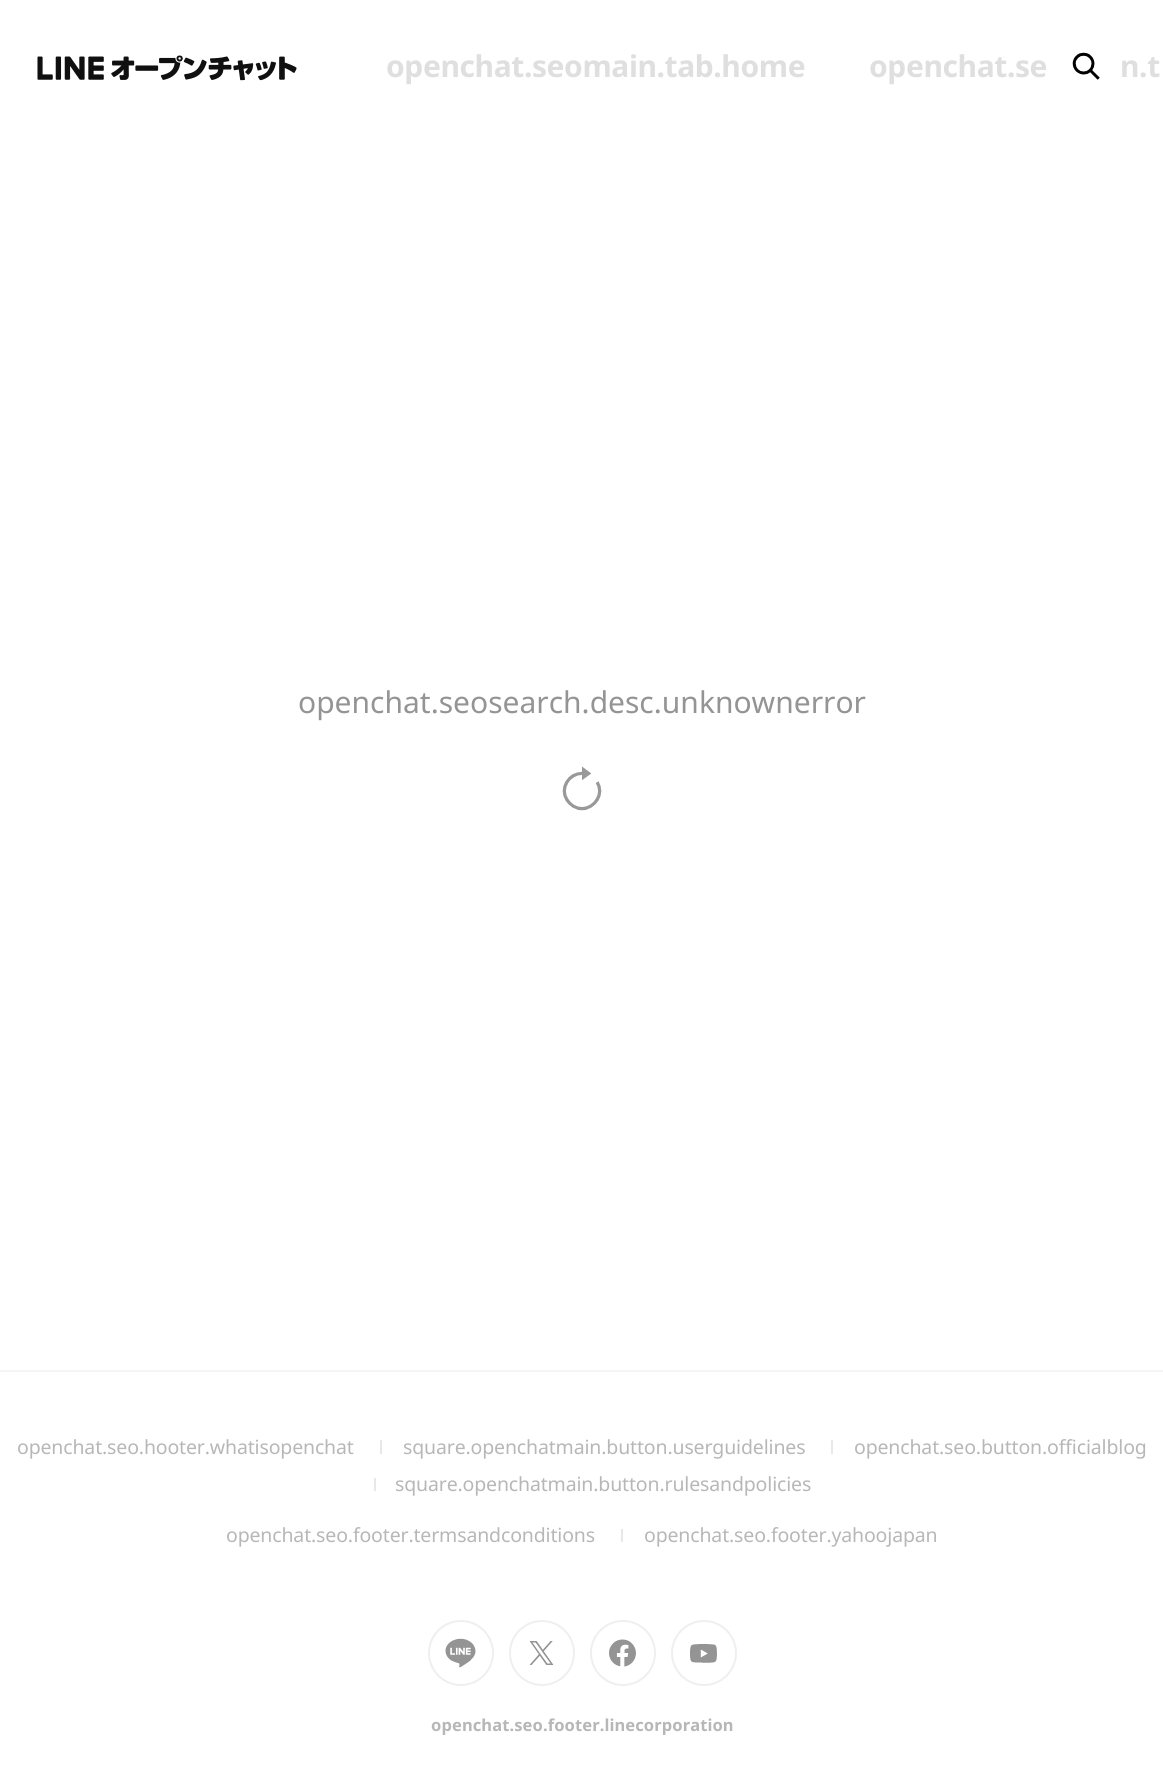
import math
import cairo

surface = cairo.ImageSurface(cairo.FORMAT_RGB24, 1163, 1792)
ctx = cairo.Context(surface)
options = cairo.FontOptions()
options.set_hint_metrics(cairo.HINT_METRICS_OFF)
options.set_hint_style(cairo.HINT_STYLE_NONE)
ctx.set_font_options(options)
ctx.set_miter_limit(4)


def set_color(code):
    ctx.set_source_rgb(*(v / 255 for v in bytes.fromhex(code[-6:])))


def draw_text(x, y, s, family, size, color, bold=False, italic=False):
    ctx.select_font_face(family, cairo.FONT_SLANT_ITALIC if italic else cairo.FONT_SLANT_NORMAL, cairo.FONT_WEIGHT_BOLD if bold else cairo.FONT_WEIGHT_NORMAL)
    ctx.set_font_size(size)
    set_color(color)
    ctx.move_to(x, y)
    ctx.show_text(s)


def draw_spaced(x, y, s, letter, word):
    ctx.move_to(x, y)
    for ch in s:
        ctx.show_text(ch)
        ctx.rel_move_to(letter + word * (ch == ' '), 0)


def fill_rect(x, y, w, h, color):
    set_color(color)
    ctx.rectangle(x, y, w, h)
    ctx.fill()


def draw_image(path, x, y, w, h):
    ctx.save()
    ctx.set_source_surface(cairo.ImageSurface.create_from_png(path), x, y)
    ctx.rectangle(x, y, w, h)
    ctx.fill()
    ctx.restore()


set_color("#ffffff")
ctx.paint()
draw_image("assets/img1.png", 1072, 52, 28, 28)
draw_image("assets/img2.png", 37, 55, 260, 26)
ctx.select_font_face("Noto Sans", cairo.FONT_SLANT_NORMAL, cairo.FONT_WEIGHT_BOLD)
ctx.set_font_size(30)
set_color("#dfdfdf")
draw_spaced(386, 77, "openchat.seomain.tab.home", -0.4, 0)
draw_spaced(869, 77, "openchat.se", -0.4, 0)
draw_spaced(1120, 77, "n.t", -0.4, 0)
draw_text(298, 713, "openchat.seosearch.desc.unknownerror", "Noto Sans", 30, "#949494")
draw_image("assets/img3.png", 562, 766, 40, 45)
fill_rect(0, 1370, 1163, 2, "#f5f5f5")
ctx.set_font_size(19.5)
set_color("#b7b7b7")
draw_spaced(17, 1454, "openchat.seo.hooter.whatisopenchat", -0.15, 0)
fill_rect(380, 1440, 2, 14, "#e8e8e8")
set_color("#b7b7b7")
draw_spaced(403, 1454, "square.openchatmain.button.userguidelines", -0.15, 0)
fill_rect(831, 1440, 2, 14, "#e8e8e8")
set_color("#b7b7b7")
draw_spaced(854, 1454, "openchat.seo.button.officialblog", -0.15, 0)
fill_rect(374, 1478, 2, 13, "#e8e8e8")
set_color("#b7b7b7")
draw_spaced(395, 1491, "square.openchatmain.button.rulesandpolicies", -0.15, 0)
draw_spaced(226, 1542, "openchat.seo.footer.termsandconditions", -0.15, 0)
fill_rect(621, 1529, 2, 13, "#e8e8e8")
set_color("#b7b7b7")
draw_spaced(644, 1542, "openchat.seo.footer.yahoojapan", -0.15, 0)
ctx.new_path()
ctx.arc(461, 1653, 32, 0, 2 * math.pi)
set_color("#efefef")
ctx.stroke()
draw_image("assets/img4.png", 445, 1638, 31, 30)
ctx.arc(542, 1653, 32, 0, 2 * math.pi)
ctx.stroke()
draw_image("assets/img5.png", 529, 1641, 25, 24)
ctx.arc(623, 1653, 32, 0, 2 * math.pi)
ctx.stroke()
draw_image("assets/img6.png", 609, 1639, 27, 28)
ctx.arc(704, 1653, 32, 0, 2 * math.pi)
ctx.stroke()
draw_image("assets/img7.png", 690, 1644, 27, 19)
ctx.select_font_face("Noto Sans", cairo.FONT_SLANT_NORMAL, cairo.FONT_WEIGHT_BOLD)
ctx.set_font_size(16.5)
set_color("#b7b7b7")
draw_spaced(431, 1731, "openchat.seo.footer.linecorporation", 0.1, 0)
surface.write_to_png("output.png")
